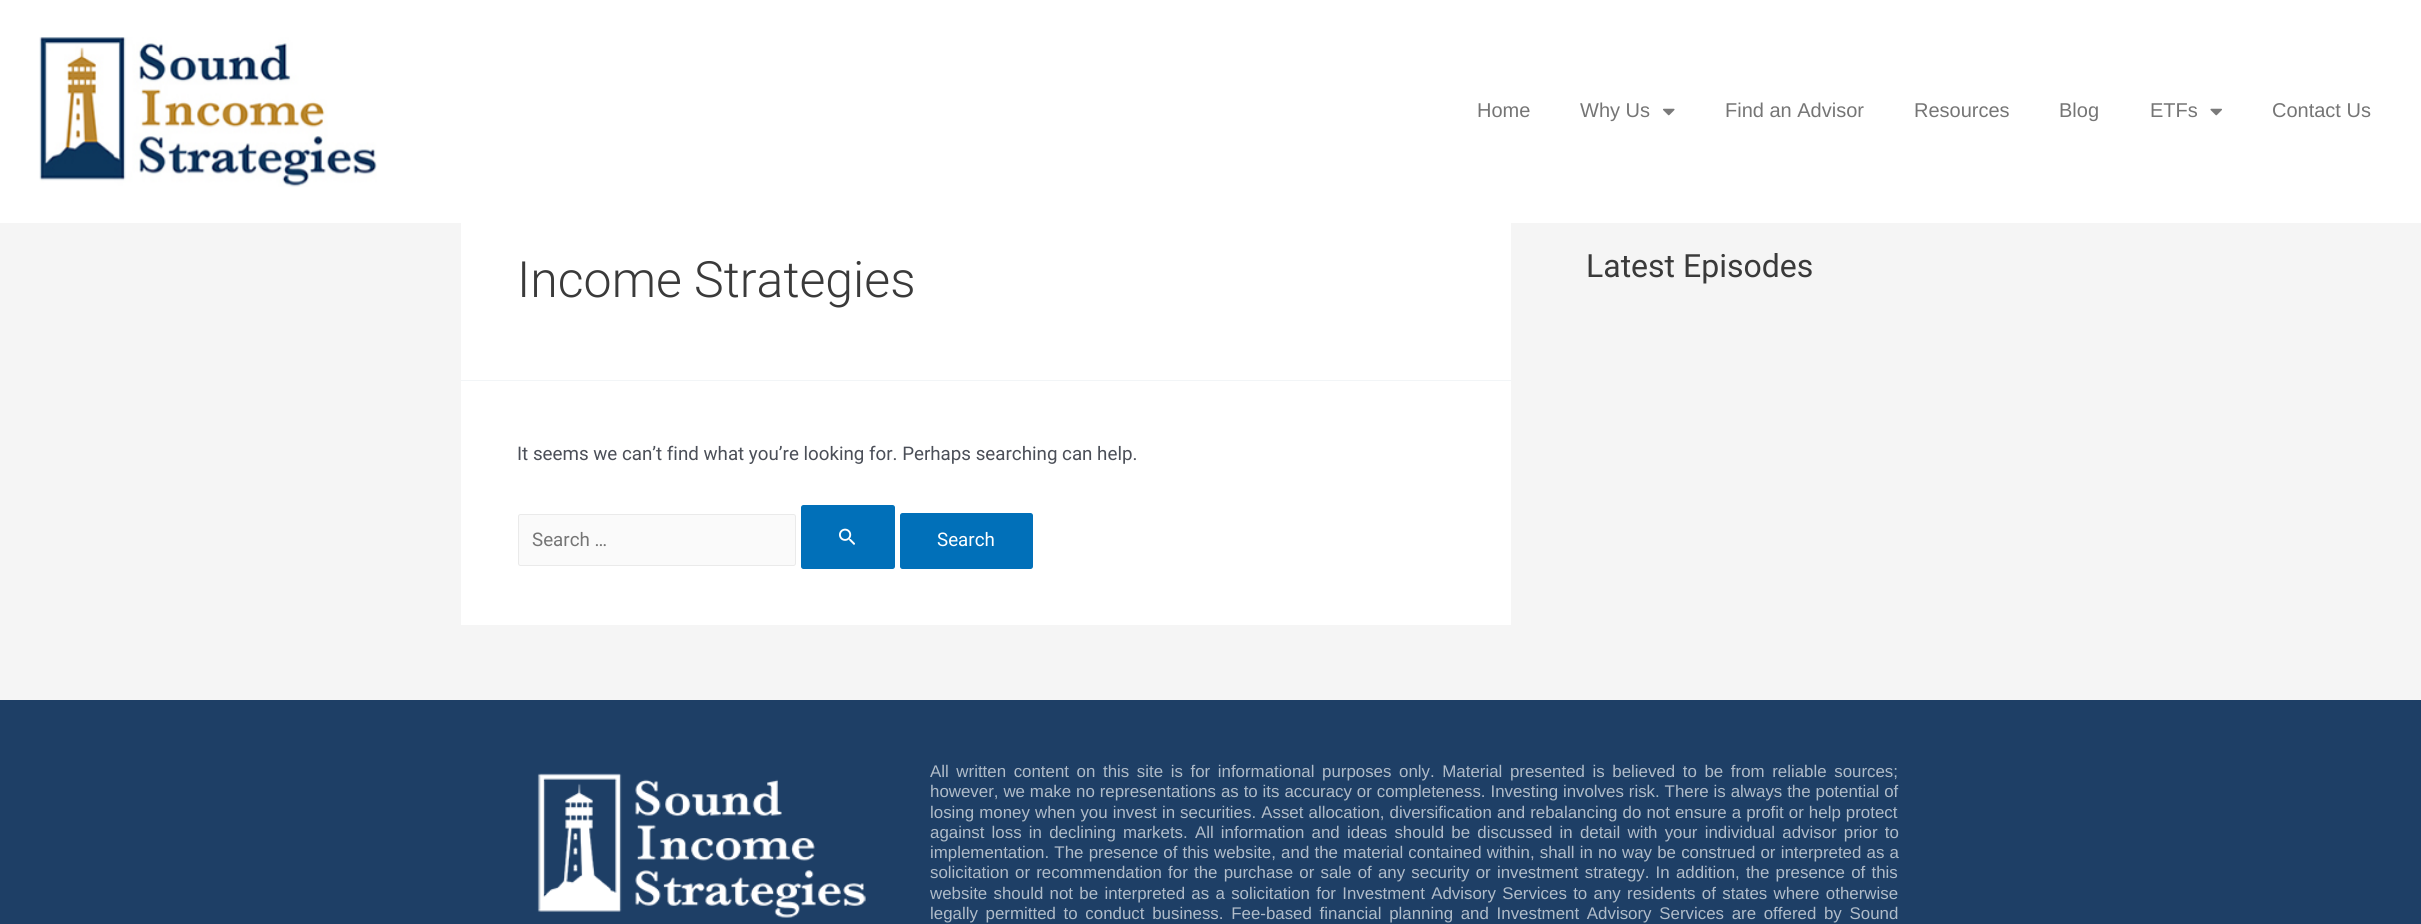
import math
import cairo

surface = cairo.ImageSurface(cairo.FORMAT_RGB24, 2421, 924)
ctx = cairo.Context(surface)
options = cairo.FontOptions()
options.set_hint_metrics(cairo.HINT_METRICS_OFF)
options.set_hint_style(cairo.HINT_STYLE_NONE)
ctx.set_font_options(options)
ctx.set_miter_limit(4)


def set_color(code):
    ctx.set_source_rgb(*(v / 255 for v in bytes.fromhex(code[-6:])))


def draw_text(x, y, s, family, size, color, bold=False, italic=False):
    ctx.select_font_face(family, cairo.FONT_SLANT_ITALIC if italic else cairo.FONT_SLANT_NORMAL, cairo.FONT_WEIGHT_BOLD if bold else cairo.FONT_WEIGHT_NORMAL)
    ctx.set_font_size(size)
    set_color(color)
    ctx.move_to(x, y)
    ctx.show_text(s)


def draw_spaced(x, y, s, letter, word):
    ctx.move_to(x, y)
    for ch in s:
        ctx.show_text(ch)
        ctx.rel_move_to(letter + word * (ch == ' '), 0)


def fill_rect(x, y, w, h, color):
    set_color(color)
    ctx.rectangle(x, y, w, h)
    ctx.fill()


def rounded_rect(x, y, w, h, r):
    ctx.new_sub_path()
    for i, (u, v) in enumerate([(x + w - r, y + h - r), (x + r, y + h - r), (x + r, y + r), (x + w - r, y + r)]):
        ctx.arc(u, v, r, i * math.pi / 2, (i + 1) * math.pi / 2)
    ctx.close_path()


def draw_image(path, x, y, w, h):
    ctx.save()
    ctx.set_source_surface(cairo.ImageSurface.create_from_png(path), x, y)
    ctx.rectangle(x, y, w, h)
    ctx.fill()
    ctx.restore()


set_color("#f5f5f5")
ctx.paint()
fill_rect(0, 0, 2421, 223, "#ffffff")
draw_image("assets/img1.png", 39, 37, 338, 150)
draw_text(1477, 117, "Home", "Liberation Sans", 20, "#757575")
draw_text(1580, 117, "Why Us", "Liberation Sans", 20, "#757575")
draw_image("assets/img2.png", 1663, 108, 12, 8)
draw_text(1725, 117, "Find an Advisor", "Liberation Sans", 20, "#757575")
draw_text(1914, 117, "Resources", "Liberation Sans", 20, "#757575")
draw_text(2059, 117, "Blog", "Liberation Sans", 20, "#757575")
draw_text(2150, 117, "ETFs", "Liberation Sans", 20, "#757575")
draw_image("assets/img3.png", 2210, 108, 12, 8)
draw_text(2272, 117, "Contact Us", "Liberation Sans", 20, "#757575")
fill_rect(461, 223, 1050, 157, "#ffffff")
fill_rect(461, 380, 1050, 1, "#f2f5f7")
draw_text(517, 297, "Income Strategies", "Roboto Light", 50, "#3a3a3a")
fill_rect(461, 381, 1050, 244, "#ffffff")
draw_text(517, 460, "It seems we can’t find what you’re looking for. Perhaps searching can help.", "Roboto", 18.75, "#4b4f58")
set_color("#fafafa")
rounded_rect(518.5, 514.5, 277, 51, 2)
ctx.fill_preserve()
set_color("#eaeaea")
ctx.set_line_width(1)
ctx.stroke()
draw_text(532, 546, "Search …", "Roboto", 18.75, "#757575")
set_color("#0170b9")
rounded_rect(801, 505, 94, 64, 2.5)
ctx.fill()
draw_image("assets/img4.png", 839, 528, 16, 17)
rounded_rect(900, 513, 133, 56, 2.5)
ctx.fill()
draw_text(937, 546, "Search", "Roboto", 18.75, "#ffffff")
draw_text(1586, 277, "Latest Episodes", "Roboto", 32, "#3a3a3a")
fill_rect(0, 700, 2421, 224, "#1e3f66")
draw_image("assets/img5.png", 537, 773, 329, 145)
ctx.select_font_face("Liberation Sans")
ctx.set_font_size(16.88)
set_color("#b0bcc9")
draw_spaced(930, 777, "All written content on this site is for informational purposes only. Material presented is believed to be from reliable sources;", 0, 2.9)
draw_spaced(930, 797, "however, we make no representations as to its accuracy or completeness. Investing involves risk. There is always the potential of", 0, 0.2)
draw_spaced(930, 818, "losing money when you invest in securities. Asset allocation, diversification and rebalancing do not ensure a profit or help protect", 0, 0.4)
draw_spaced(930, 838, "against loss in declining markets. All information and ideas should be discussed in detail with your individual advisor prior to", 0, 2.5)
draw_spaced(930, 858, "implementation. The presence of this website, and the material contained within, shall in no way be construed or interpreted as a", 0, 0.5)
draw_spaced(930, 878, "solicitation or recommendation for the purchase or sale of any security or investment strategy. In addition, the presence of this", 0, 1.5)
draw_spaced(930, 899, "website should not be interpreted as a solicitation for Investment Advisory Services to any residents of states where otherwise", 0, 1.6)
draw_spaced(930, 919, "legally permitted to conduct business. Fee-based financial planning and Investment Advisory Services are offered by Sound", 0, 3)
surface.write_to_png("output.png")
